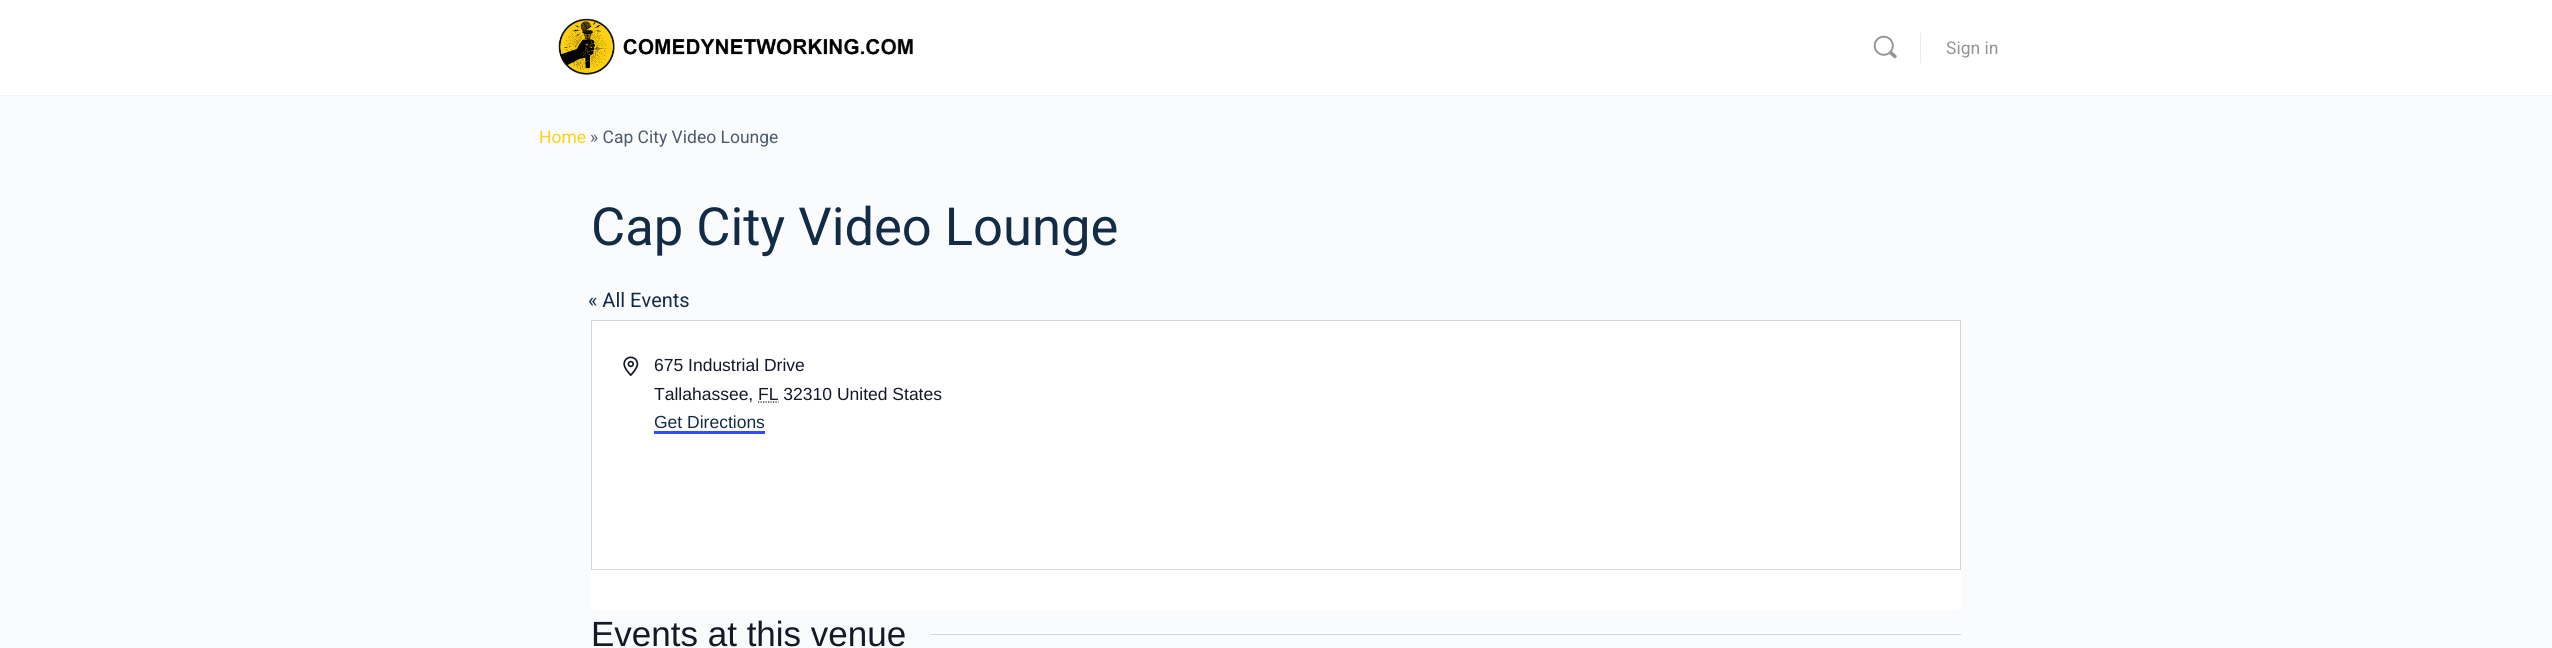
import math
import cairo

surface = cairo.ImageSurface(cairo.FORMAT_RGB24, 2552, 648)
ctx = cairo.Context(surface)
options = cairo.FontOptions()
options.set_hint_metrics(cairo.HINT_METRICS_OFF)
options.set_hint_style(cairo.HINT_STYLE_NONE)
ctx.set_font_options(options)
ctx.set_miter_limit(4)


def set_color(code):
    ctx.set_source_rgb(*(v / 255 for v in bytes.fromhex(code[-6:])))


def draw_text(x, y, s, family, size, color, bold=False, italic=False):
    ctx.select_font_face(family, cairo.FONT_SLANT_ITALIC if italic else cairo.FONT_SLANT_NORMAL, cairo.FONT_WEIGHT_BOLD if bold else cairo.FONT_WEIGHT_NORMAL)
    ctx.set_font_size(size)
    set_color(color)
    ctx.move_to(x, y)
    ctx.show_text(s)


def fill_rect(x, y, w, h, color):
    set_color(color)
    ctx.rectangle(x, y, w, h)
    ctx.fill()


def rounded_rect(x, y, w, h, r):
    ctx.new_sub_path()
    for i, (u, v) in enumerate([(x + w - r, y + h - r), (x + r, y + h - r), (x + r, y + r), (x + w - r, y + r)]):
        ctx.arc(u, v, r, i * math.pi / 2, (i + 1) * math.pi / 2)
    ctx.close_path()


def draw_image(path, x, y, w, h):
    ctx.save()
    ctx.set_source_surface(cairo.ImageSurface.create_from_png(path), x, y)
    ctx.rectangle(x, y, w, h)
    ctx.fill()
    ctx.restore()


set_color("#fafbfd")
ctx.paint()
set_color("#f2f3f6")
ctx.new_path()
ctx.move_to(0, 95)
ctx.line_to(0, 96)
ctx.line_to(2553, 96)
ctx.line_to(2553, 1)
ctx.line_to(2552, 1)
ctx.line_to(2552, 95)
ctx.close_path()
ctx.fill()
fill_rect(0, 0, 2552, 95, "#ffffff")
draw_image("assets/img1.png", 558, 18, 355, 57)
draw_image("assets/img2.png", 1873, 35, 24, 24)
fill_rect(1920, 33, 1, 30, "#e9eaea")
draw_text(1946, 54, "Sign in", "Roboto", 17.5, "#939597")
draw_text(539, 143, "Home", "Roboto", 17.5, "#ffd011")
draw_text(590, 143, "» Cap City Video Lounge", "Roboto", 17.5, "#4d5c6d")
draw_text(591, 245, "Cap City Video Lounge", "Roboto", 52.5, "#122b46")
draw_text(588, 307, "« All Events", "Roboto", 20, "#122b46")
set_color("#ffffff")
rounded_rect(591, 320, 1370, 290, 5)
ctx.fill()
ctx.rectangle(591.5, 320.5, 1369, 249)
set_color("#d5d5d5")
ctx.set_line_width(1)
ctx.stroke()
draw_image("assets/img3.png", 623, 356, 16, 20)
draw_text(654, 371, "675 Industrial Drive", "Liberation Sans", 17.5, "#141827")
draw_text(654, 400, "Tallahassee, FL 32310 United States", "Liberation Sans", 17.5, "#141827")
ctx.new_path()
ctx.move_to(758, 402)
ctx.line_to(778.5, 402)
ctx.set_line_width(1.2)
ctx.set_dash([1.25, 1.25])
ctx.stroke()
draw_text(654, 428, "Get Directions", "Liberation Sans", 17.5, "#122b46")
fill_rect(654, 431, 111, 3, "#334aff")
draw_text(591, 646, "Events at this venue", "Liberation Sans", 35, "#141827")
fill_rect(931, 634, 1030, 1, "#d5d5d5")
surface.write_to_png("output.png")
